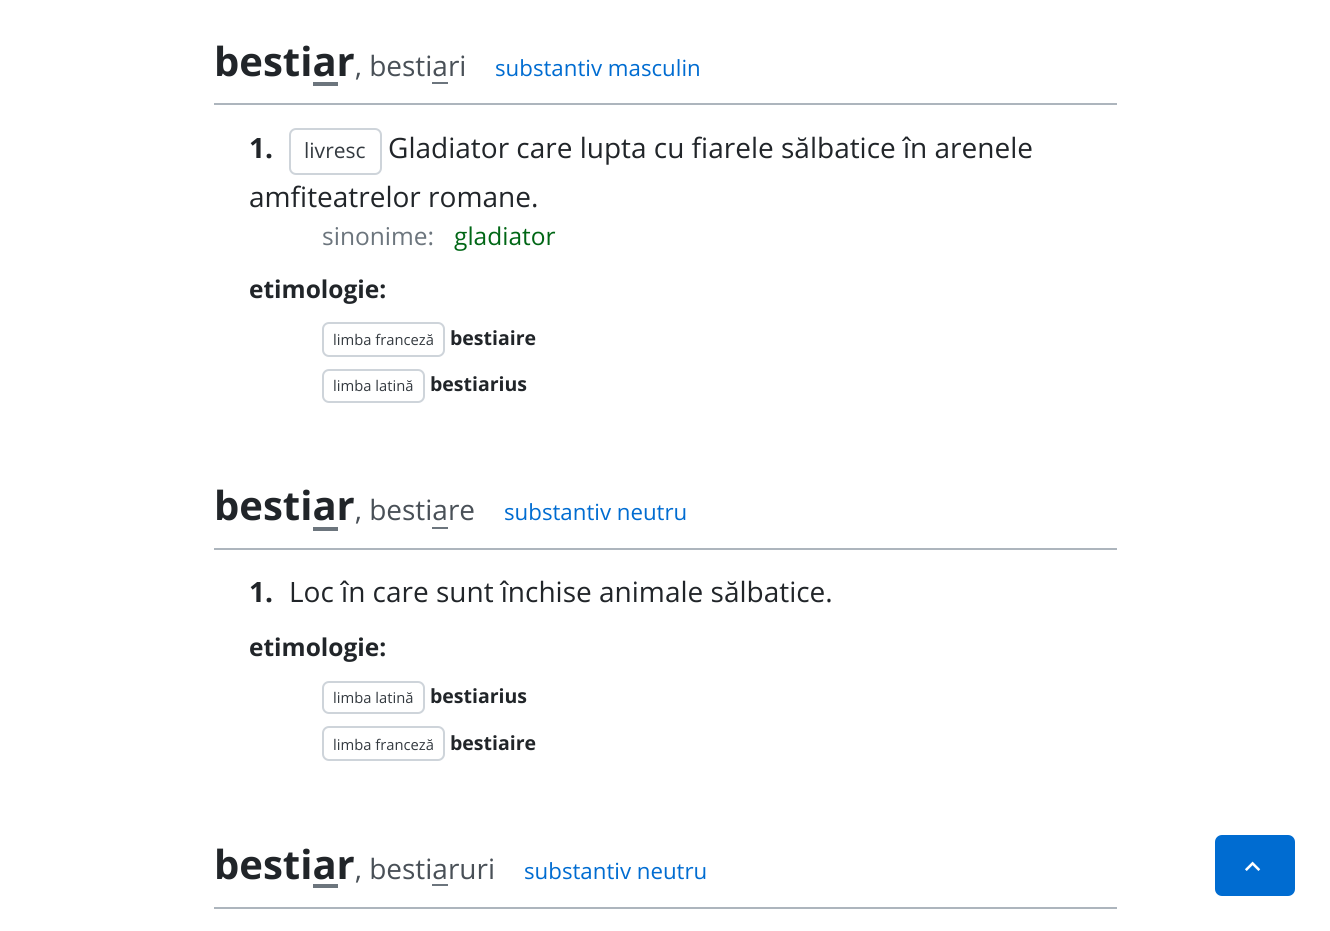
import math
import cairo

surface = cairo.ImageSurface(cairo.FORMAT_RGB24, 1330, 931)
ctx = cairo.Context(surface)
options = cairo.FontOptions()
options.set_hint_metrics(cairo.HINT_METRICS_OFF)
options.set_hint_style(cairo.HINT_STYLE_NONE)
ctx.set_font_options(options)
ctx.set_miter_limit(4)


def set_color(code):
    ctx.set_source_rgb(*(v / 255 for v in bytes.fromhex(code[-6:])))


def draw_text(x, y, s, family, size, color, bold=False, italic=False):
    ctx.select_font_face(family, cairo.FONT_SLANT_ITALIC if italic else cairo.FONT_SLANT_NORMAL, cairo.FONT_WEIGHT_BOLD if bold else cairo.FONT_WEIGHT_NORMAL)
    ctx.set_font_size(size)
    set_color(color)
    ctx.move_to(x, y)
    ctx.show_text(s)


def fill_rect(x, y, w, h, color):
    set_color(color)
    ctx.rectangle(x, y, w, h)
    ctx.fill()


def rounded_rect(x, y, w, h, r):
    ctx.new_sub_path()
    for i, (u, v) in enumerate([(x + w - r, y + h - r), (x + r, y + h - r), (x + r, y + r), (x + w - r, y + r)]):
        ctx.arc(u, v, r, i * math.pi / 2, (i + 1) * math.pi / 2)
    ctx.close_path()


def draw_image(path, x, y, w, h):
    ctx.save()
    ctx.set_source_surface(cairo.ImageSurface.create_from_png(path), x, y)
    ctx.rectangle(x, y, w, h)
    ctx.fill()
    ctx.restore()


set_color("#ffffff")
ctx.paint()
fill_rect(214, 103, 903, 2, "#adb5bd")
draw_text(214, 76, "bestiar", "Open Sans", 40, "#212529", bold=True)
draw_text(355, 76, ", bestiari", "Open Sans", 28, "#495057")
fill_rect(432, 82, 16, 2, "#6c757d")
draw_text(495, 76, "substantiv masculin", "Open Sans", 22.25, "#006cd1")
fill_rect(313, 82, 25, 4, "#6c757d")
draw_text(249, 158, "1.", "Open Sans", 28, "#212529", bold=True)
rounded_rect(290, 129, 91, 45, 6)
set_color("#ced4da")
ctx.stroke()
draw_text(304, 158, "livresc", "Open Sans", 21, "#343a40")
draw_text(388, 158, "Gladiator care lupta cu fiarele sălbatice în arenele", "Open Sans", 28, "#212529")
draw_text(249, 207, "amfiteatrelor romane.", "Open Sans", 28, "#212529")
draw_text(322, 245, "sinonime:", "Open Sans", 24.5, "#6c757d")
draw_text(454, 245, "gladiator", "Open Sans", 24.5, "#006615")
draw_text(249, 298, "etimologie:", "Open Sans", 24.5, "#212529", bold=True)
rounded_rect(323, 323, 121, 33, 6)
set_color("#ced4da")
ctx.stroke()
draw_text(333, 345, "limba franceză", "Open Sans", 14.75, "#343a40")
draw_text(450, 345, "bestiaire", "Open Sans", 19.5, "#212529", bold=True)
rounded_rect(323, 370, 101, 32, 6)
set_color("#ced4da")
ctx.stroke()
draw_text(333, 391, "limba latină", "Open Sans", 14.75, "#343a40")
draw_text(430, 391, "bestiarius", "Open Sans", 19.5, "#212529", bold=True)
fill_rect(214, 548, 903, 2, "#adb5bd")
draw_text(214, 520, "bestiar", "Open Sans", 40, "#212529", bold=True)
draw_text(355, 520, ", bestiare", "Open Sans", 28, "#495057")
fill_rect(432, 527, 16, 2, "#6c757d")
draw_text(504, 520, "substantiv neutru", "Open Sans", 22.25, "#006cd1")
fill_rect(313, 527, 25, 4, "#6c757d")
draw_text(249, 602, "1.", "Open Sans", 28, "#212529", bold=True)
draw_text(289, 602, "Loc în care sunt închise animale sălbatice.", "Open Sans", 28, "#212529")
draw_text(249, 656, "etimologie:", "Open Sans", 24.5, "#212529", bold=True)
rounded_rect(323, 682, 101, 31, 6)
set_color("#ced4da")
ctx.stroke()
draw_text(333, 703, "limba latină", "Open Sans", 14.75, "#343a40")
draw_text(430, 703, "bestiarius", "Open Sans", 19.5, "#212529", bold=True)
rounded_rect(323, 727, 121, 33, 6)
set_color("#ced4da")
ctx.stroke()
draw_text(333, 750, "limba franceză", "Open Sans", 14.75, "#343a40")
draw_text(450, 750, "bestiaire", "Open Sans", 19.5, "#212529", bold=True)
fill_rect(214, 907, 903, 2, "#adb5bd")
draw_text(214, 879, "bestiar", "Open Sans", 40, "#212529", bold=True)
draw_text(355, 879, ", bestiaruri", "Open Sans", 28, "#495057")
fill_rect(432, 884, 16, 2, "#6c757d")
draw_text(524, 879, "substantiv neutru", "Open Sans", 22.25, "#006cd1")
fill_rect(313, 884, 25, 4, "#6c757d")
set_color("#006cd1")
rounded_rect(1216, 836, 78, 59, 6)
ctx.fill_preserve()
ctx.stroke()
draw_image("assets/img1.png", 1245, 861, 16, 10)
surface.write_to_png("output.png")
